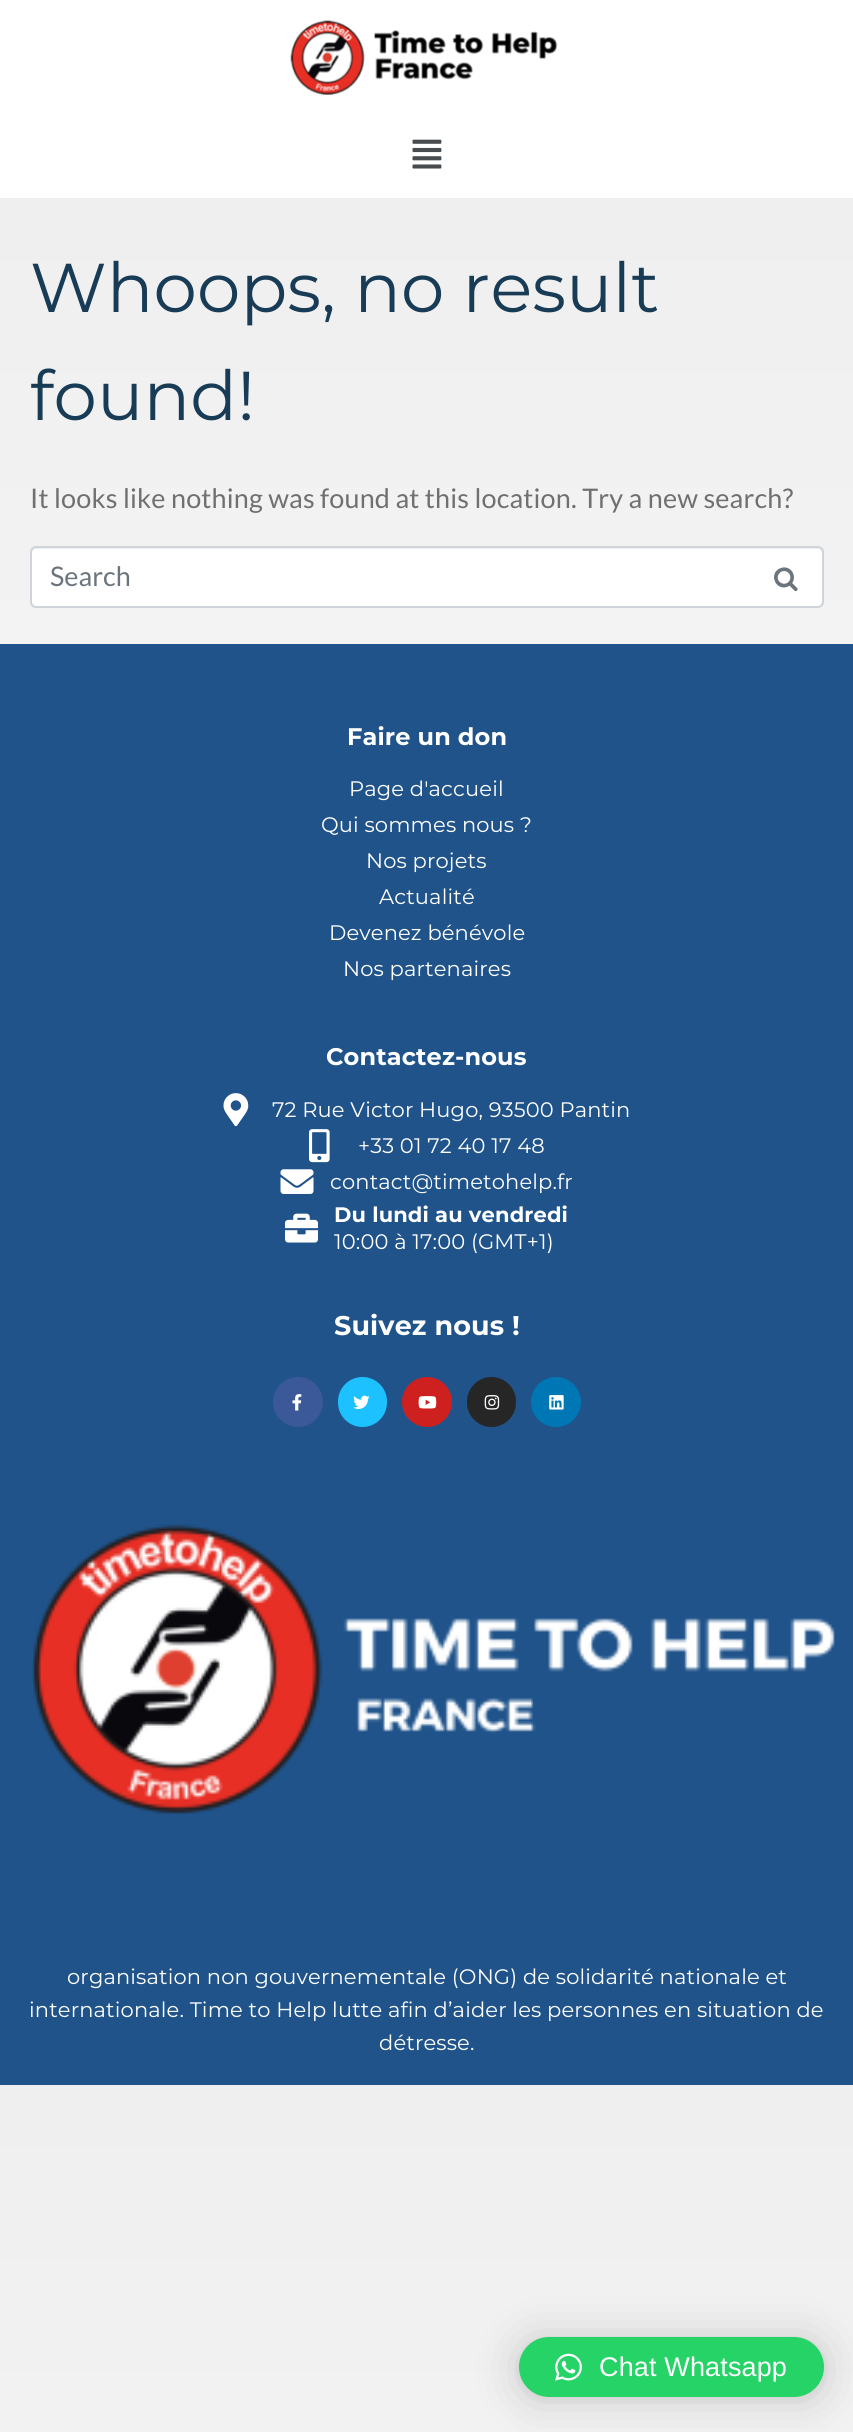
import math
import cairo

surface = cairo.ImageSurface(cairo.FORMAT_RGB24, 853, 2432)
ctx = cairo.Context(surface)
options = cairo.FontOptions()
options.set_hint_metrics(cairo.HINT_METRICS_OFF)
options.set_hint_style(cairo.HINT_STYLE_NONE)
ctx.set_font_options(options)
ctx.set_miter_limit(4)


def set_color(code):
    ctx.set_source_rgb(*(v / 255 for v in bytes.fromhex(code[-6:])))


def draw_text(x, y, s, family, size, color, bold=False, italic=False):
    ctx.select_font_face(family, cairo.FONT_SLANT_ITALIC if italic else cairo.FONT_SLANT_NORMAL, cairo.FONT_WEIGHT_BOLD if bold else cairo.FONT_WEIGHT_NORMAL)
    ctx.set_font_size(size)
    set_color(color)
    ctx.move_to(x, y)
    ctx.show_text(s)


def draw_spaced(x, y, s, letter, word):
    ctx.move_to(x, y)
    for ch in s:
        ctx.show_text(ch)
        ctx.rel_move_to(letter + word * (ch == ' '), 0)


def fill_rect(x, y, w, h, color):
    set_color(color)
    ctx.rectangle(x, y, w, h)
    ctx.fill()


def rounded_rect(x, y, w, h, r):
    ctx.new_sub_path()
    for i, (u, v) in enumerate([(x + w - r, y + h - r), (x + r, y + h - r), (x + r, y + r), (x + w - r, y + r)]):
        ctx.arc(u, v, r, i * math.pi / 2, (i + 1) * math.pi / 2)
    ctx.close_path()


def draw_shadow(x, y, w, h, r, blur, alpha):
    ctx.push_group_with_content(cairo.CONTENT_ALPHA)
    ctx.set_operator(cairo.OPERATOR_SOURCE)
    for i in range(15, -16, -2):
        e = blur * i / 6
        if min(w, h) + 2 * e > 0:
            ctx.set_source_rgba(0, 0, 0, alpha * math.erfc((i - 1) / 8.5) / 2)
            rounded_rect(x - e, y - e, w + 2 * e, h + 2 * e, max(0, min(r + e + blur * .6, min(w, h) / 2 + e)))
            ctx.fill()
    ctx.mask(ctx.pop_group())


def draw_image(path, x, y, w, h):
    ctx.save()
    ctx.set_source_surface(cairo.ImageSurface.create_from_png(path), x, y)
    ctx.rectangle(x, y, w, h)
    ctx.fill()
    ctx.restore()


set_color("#ffffff")
ctx.paint()
gradient = cairo.LinearGradient(427, 2085, 427, 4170)
gradient.add_color_stop_rgba(0, 0.937, 0.937, 0.937, 1)
gradient.add_color_stop_rgba(0.86, 1, 1, 1, 1)
ctx.set_source(gradient)
ctx.rectangle(0, 2085, 853, 347)
ctx.fill()
draw_image("assets/img1.png", 290, 20, 268, 75)
draw_image("assets/img2.png", 412, 139, 30, 30)
gradient = cairo.LinearGradient(427, 198, 427, 1998)
gradient.add_color_stop_rgba(0, 0.937, 0.937, 0.937, 1)
gradient.add_color_stop_rgba(1, 1, 1, 1, 1)
ctx.set_source(gradient)
ctx.rectangle(0, 198, 853, 446)
ctx.fill()
ctx.select_font_face("Montserrat")
ctx.set_font_size(69)
set_color("#183b56")
draw_spaced(30, 312, "Whoops, no result", 0.15, 0)
draw_spaced(30, 420, "found!", 0.15, 0)
ctx.select_font_face("Lato")
ctx.set_font_size(27)
set_color("#707070")
draw_spaced(30, 508, "It looks like nothing was found at this location. Try a new search?", 0.15, 0)
set_color("#ffffff")
rounded_rect(32, 548, 790, 58, 5)
ctx.fill()
ctx.set_source_rgba(0, 0, 0, 0.07)
ctx.new_path()
ctx.move_to(36, 549)
ctx.line_to(818, 549)
ctx.curve_to(820, 549, 822, 551, 822, 554)
ctx.line_to(822, 553)
ctx.curve_to(822, 550, 820, 548, 817, 548)
ctx.line_to(37, 548)
ctx.curve_to(34, 548, 32, 550, 32, 553)
ctx.line_to(32, 554)
ctx.curve_to(32, 551, 34, 549, 36, 549)
ctx.close_path()
ctx.fill()
rounded_rect(31, 547, 792, 60, 5)
set_color("#ced4da")
ctx.stroke()
draw_text(50, 586, "Search", "Lato", 27, "#6c757d")
draw_image("assets/img3.png", 774, 567, 24, 25)
fill_rect(0, 644, 853, 1441, "#1f538a")
ctx.select_font_face("Montserrat", cairo.FONT_SLANT_NORMAL, cairo.FONT_WEIGHT_BOLD)
ctx.set_font_size(24)
set_color("#ffffff")
draw_spaced(347, 745, "Faire un don", 0.15, 0)
ctx.select_font_face("Montserrat")
ctx.set_font_size(21)
draw_spaced(349, 796, "Page d'accueil", 0.15, 0)
draw_spaced(321, 832, "Qui sommes nous ?", 0.15, 0)
draw_spaced(366, 868, "Nos projets", 0.15, 0)
draw_spaced(379, 904, "Actualité", 0.15, 0)
draw_spaced(329, 940, "Devenez bénévole", 0.15, 0)
draw_spaced(343, 976, "Nos partenaires", 0.15, 0)
ctx.select_font_face("Montserrat", cairo.FONT_SLANT_NORMAL, cairo.FONT_WEIGHT_BOLD)
ctx.set_font_size(24)
draw_spaced(326, 1065, "Contactez-nous", 0.15, 0)
draw_image("assets/img4.png", 223, 1093, 26, 34)
ctx.select_font_face("Montserrat")
ctx.set_font_size(21)
draw_spaced(272, 1117, "72 Rue Victor Hugo, 93500 Pantin", 0.15, 0)
draw_image("assets/img5.png", 309, 1129, 21, 34)
draw_spaced(358, 1153, "+33 01 72 40 17 48", 0.15, 0)
draw_image("assets/img6.png", 280, 1169, 34, 25)
draw_spaced(330, 1189, "contact@timetohelp.fr", 0.15, 0)
draw_image("assets/img7.png", 285, 1213, 33, 30)
ctx.select_font_face("Montserrat", cairo.FONT_SLANT_NORMAL, cairo.FONT_WEIGHT_BOLD)
draw_spaced(334, 1222, "Du lundi au vendredi", 0.15, 0)
ctx.select_font_face("Montserrat")
draw_spaced(334, 1249, "10:00 à 17:00 (GMT+1)", 0.15, 0)
ctx.select_font_face("Montserrat", cairo.FONT_SLANT_NORMAL, cairo.FONT_WEIGHT_BOLD)
ctx.set_font_size(27)
draw_spaced(334, 1335, "Suivez nous !", 0.15, 0)
set_color("#3b5998")
ctx.new_path()
ctx.arc(298, 1402, 25, 0, 2 * math.pi)
ctx.fill()
draw_image("assets/img8.png", 292, 1394, 10, 17)
set_color("#1dc1ff")
rounded_rect(338, 1377, 49, 50, 24.5)
ctx.fill()
draw_image("assets/img9.png", 353, 1395, 17, 14)
set_color("#cd201f")
ctx.arc(427, 1402, 25, 0, 2 * math.pi)
ctx.fill()
draw_image("assets/img10.png", 418, 1396, 19, 13)
set_color("#262626")
rounded_rect(467, 1377, 49, 50, 24.5)
ctx.fill()
draw_image("assets/img11.png", 484, 1395, 16, 15)
set_color("#0077b5")
ctx.arc(556, 1402, 25, 0, 2 * math.pi)
ctx.fill()
draw_image("assets/img12.png", 549, 1395, 15, 15)
draw_image("assets/img13.png", 32, 1524, 803, 290)
ctx.select_font_face("Montserrat")
ctx.set_font_size(21)
set_color("#ffffff")
draw_spaced(67, 1984, "organisation non gouvernementale (ONG) de solidarité nationale et", 0.15, 0)
draw_spaced(29, 2017, "internationale. Time to Help lutte afin d’aider les personnes en situation de", 0.15, 0)
draw_spaced(379, 2050, "détresse.", 0.15, 0)
set_color("#000000")
draw_shadow(519, 2340, 305, 60, 30, 24, 0.16)
draw_shadow(519, 2339, 305, 60, 30, 4.5, 0.06)
set_color("#25d366")
rounded_rect(519, 2337, 305, 60, 30)
ctx.fill()
draw_image("assets/img14.png", 555, 2353, 27, 28)
ctx.select_font_face("Liberation Sans")
ctx.set_font_size(27)
set_color("#ffffff")
draw_spaced(599, 2376, "Chat Whatsapp", 0.15, 0)
surface.write_to_png("output.png")
